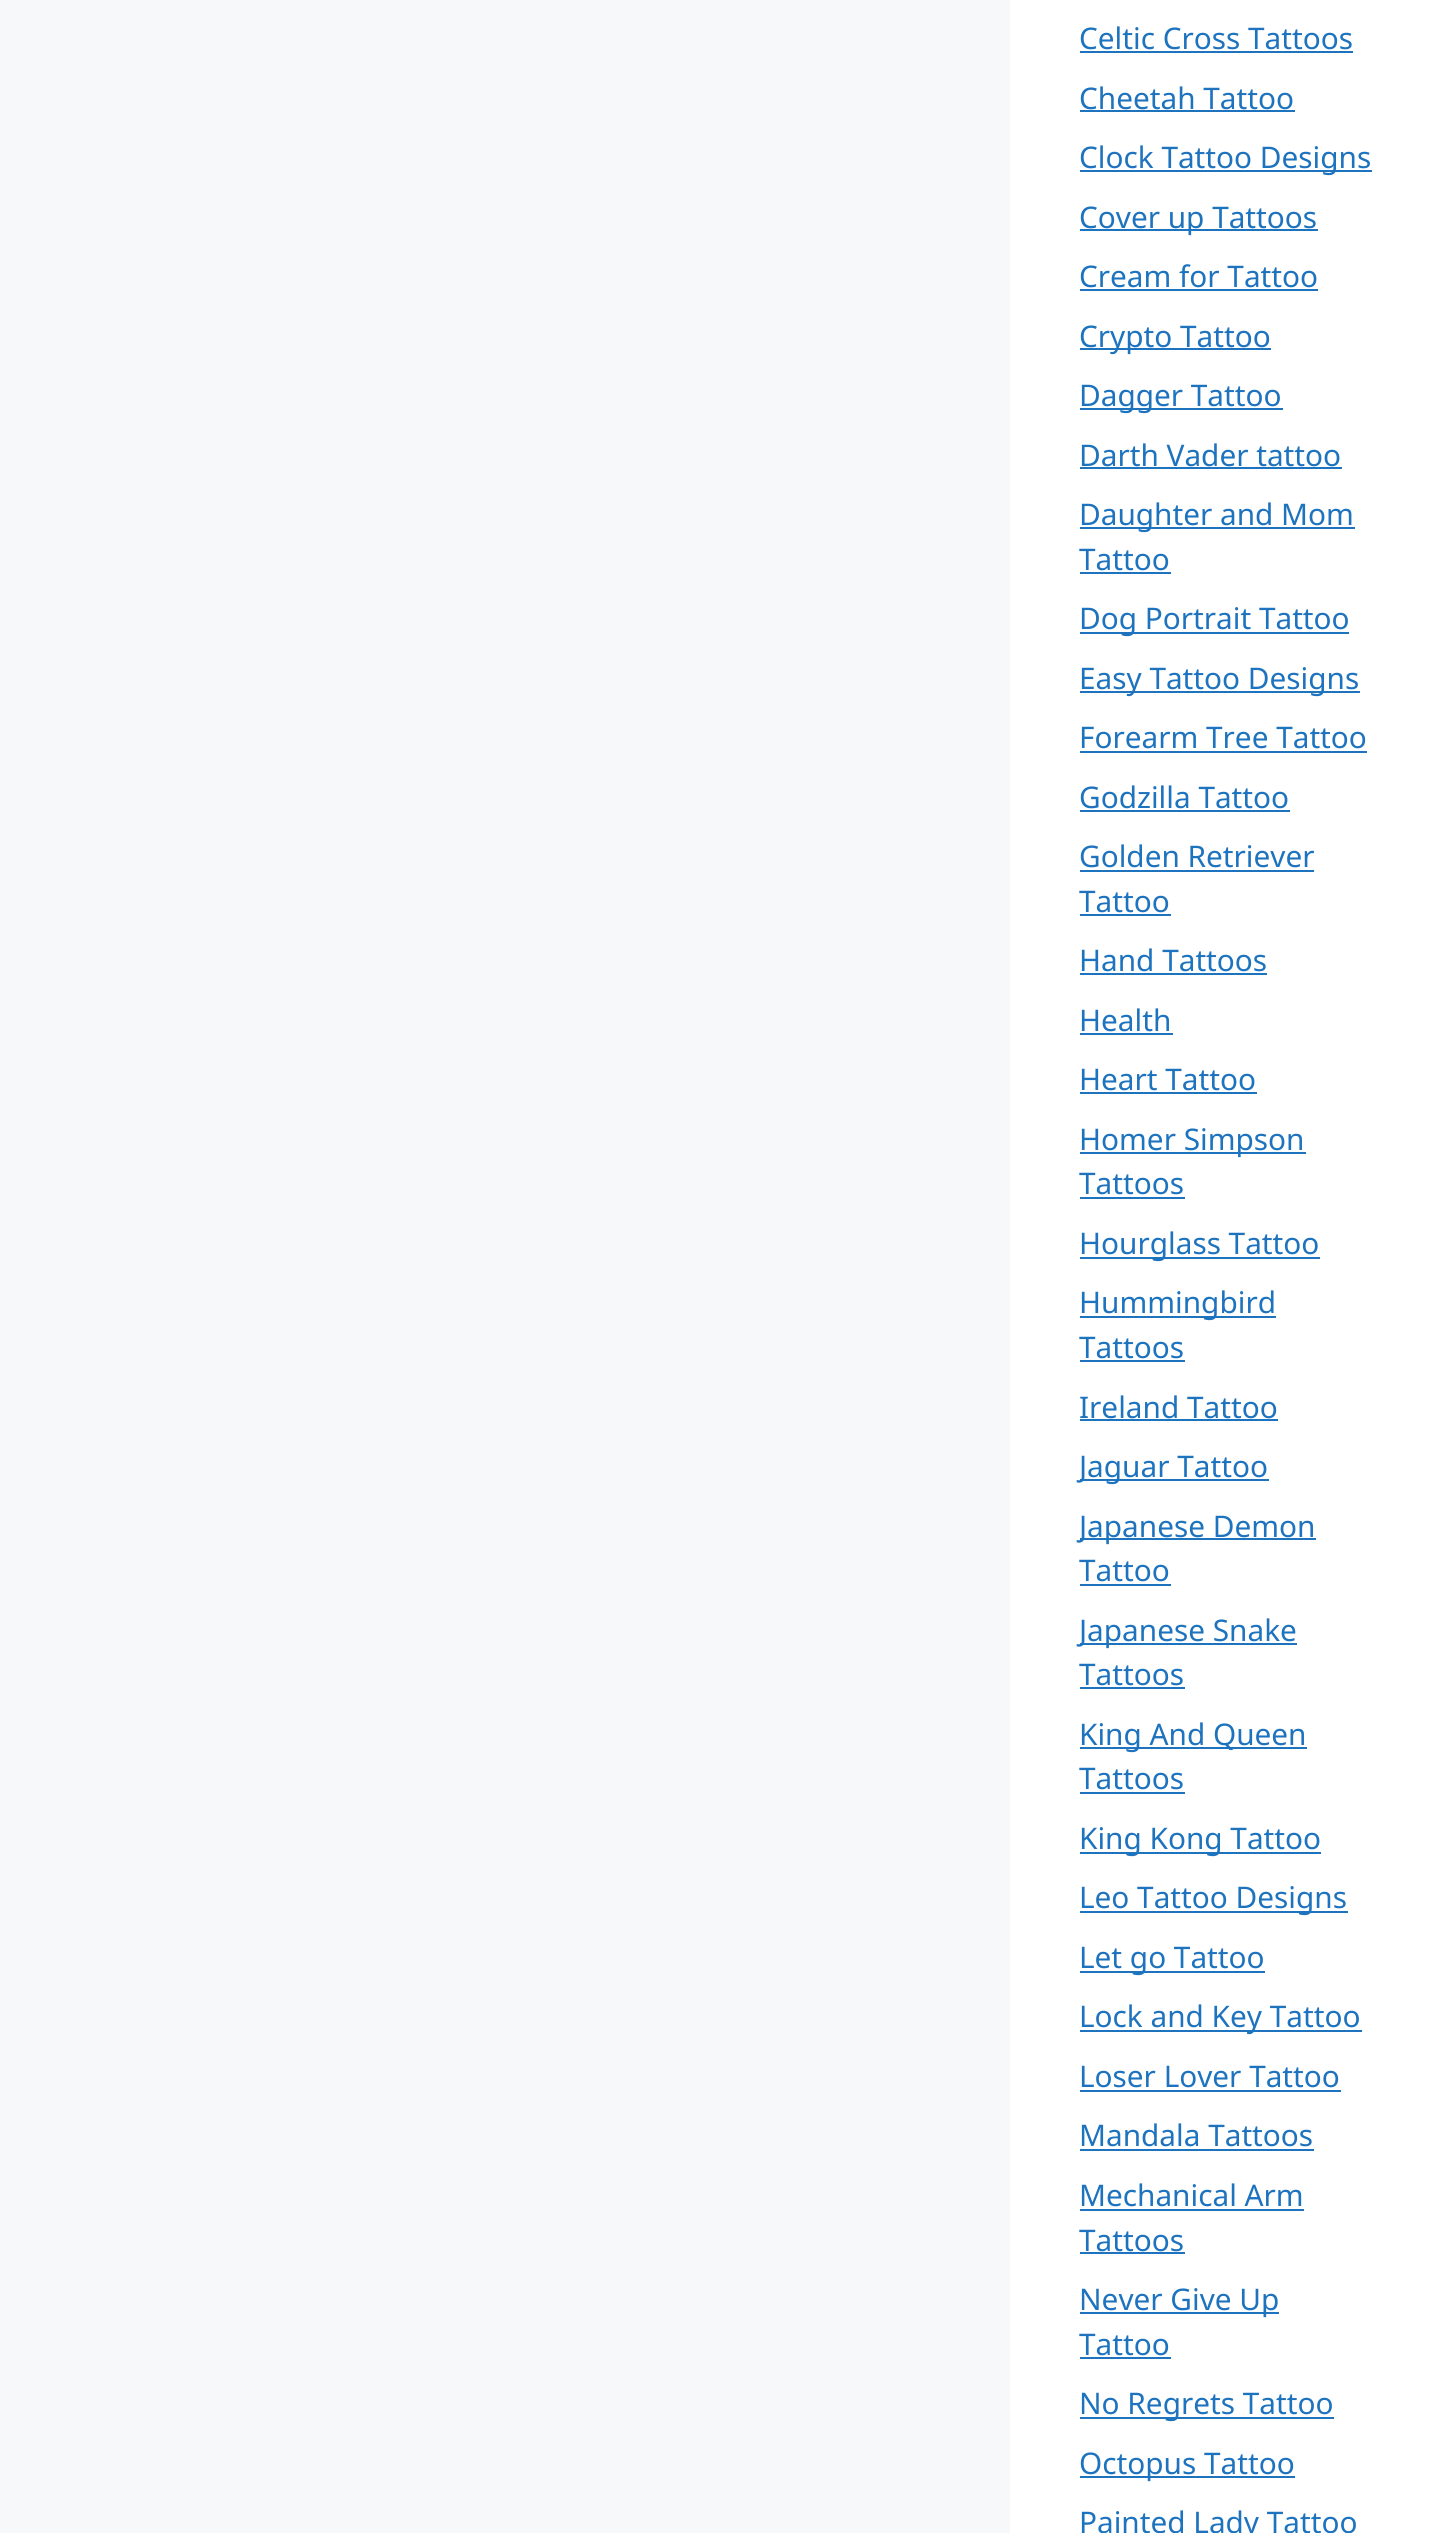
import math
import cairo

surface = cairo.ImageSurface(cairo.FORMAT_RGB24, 1441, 2533)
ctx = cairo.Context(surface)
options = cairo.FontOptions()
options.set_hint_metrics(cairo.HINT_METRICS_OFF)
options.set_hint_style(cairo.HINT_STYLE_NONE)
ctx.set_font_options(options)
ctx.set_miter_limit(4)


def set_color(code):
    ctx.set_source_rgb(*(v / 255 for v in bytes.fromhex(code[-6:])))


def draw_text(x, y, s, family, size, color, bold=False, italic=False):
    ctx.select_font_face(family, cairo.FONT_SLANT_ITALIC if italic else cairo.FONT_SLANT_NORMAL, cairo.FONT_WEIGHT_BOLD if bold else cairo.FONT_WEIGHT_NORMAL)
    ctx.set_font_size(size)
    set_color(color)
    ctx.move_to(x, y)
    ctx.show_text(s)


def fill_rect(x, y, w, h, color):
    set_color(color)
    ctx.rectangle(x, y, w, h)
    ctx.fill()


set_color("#f7f8f9")
ctx.paint()
fill_rect(1010, 0, 431, 2533, "#ffffff")
draw_text(1079, 49, "Celtic Cross Tattoos", "Noto Sans", 29.75, "#1e73be")
fill_rect(1080, 51, 273, 2, "#1e73be")
draw_text(1079, 109, "Cheetah Tattoo", "Noto Sans", 29.75, "#1e73be")
fill_rect(1080, 110, 215, 2, "#1e73be")
fill_rect(1080, 170, 292, 2, "#1e73be")
draw_text(1079, 168, "Clock Tattoo Designs", "Noto Sans", 29.75, "#1e73be")
fill_rect(1080, 229, 238, 2, "#1e73be")
draw_text(1079, 228, "Cover up Tattoos", "Noto Sans", 29.75, "#1e73be")
draw_text(1079, 287, "Cream for Tattoo", "Noto Sans", 29.75, "#1e73be")
fill_rect(1080, 289, 238, 2, "#1e73be")
fill_rect(1080, 348, 191, 2, "#1e73be")
draw_text(1079, 347, "Crypto Tattoo", "Noto Sans", 29.75, "#1e73be")
fill_rect(1080, 408, 203, 2, "#1e73be")
draw_text(1079, 406, "Dagger Tattoo", "Noto Sans", 29.75, "#1e73be")
draw_text(1079, 466, "Darth Vader tattoo", "Noto Sans", 29.75, "#1e73be")
fill_rect(1080, 467, 262, 2, "#1e73be")
fill_rect(1080, 527, 275, 2, "#1e73be")
draw_text(1079, 525, "Daughter and Mom", "Noto Sans", 29.75, "#1e73be")
draw_text(1079, 570, "Tattoo", "Noto Sans", 29.75, "#1e73be")
fill_rect(1080, 572, 91, 2, "#1e73be")
fill_rect(1080, 632, 269, 2, "#1e73be")
draw_text(1079, 629, "Dog Portrait Tattoo", "Noto Sans", 29.75, "#1e73be")
fill_rect(1080, 691, 280, 2, "#1e73be")
draw_text(1079, 689, "Easy Tattoo Designs", "Noto Sans", 29.75, "#1e73be")
draw_text(1079, 748, "Forearm Tree Tattoo", "Noto Sans", 29.75, "#1e73be")
fill_rect(1080, 751, 287, 2, "#1e73be")
draw_text(1079, 808, "Godzilla Tattoo", "Noto Sans", 29.75, "#1e73be")
fill_rect(1080, 810, 210, 2, "#1e73be")
draw_text(1079, 867, "Golden Retriever", "Noto Sans", 29.75, "#1e73be")
fill_rect(1080, 870, 234, 2, "#1e73be")
draw_text(1079, 912, "Tattoo", "Noto Sans", 29.75, "#1e73be")
fill_rect(1080, 914, 91, 2, "#1e73be")
draw_text(1079, 971, "Hand Tattoos", "Noto Sans", 29.75, "#1e73be")
fill_rect(1080, 973, 187, 2, "#1e73be")
draw_text(1079, 1031, "Health", "Noto Sans", 29.75, "#1e73be")
fill_rect(1080, 1033, 93, 2, "#1e73be")
draw_text(1079, 1090, "Heart Tattoo", "Noto Sans", 29.75, "#1e73be")
fill_rect(1080, 1092, 177, 2, "#1e73be")
fill_rect(1080, 1152, 226, 2, "#1e73be")
draw_text(1079, 1150, "Homer Simpson", "Noto Sans", 29.75, "#1e73be")
draw_text(1079, 1194, "Tattoos", "Noto Sans", 29.75, "#1e73be")
fill_rect(1080, 1197, 105, 2, "#1e73be")
fill_rect(1080, 1257, 240, 2, "#1e73be")
draw_text(1079, 1254, "Hourglass Tattoo", "Noto Sans", 29.75, "#1e73be")
fill_rect(1080, 1316, 196, 2, "#1e73be")
draw_text(1079, 1313, "Hummingbird", "Noto Sans", 29.75, "#1e73be")
draw_text(1079, 1358, "Tattoos", "Noto Sans", 29.75, "#1e73be")
fill_rect(1080, 1360, 105, 2, "#1e73be")
draw_text(1079, 1418, "Ireland Tattoo", "Noto Sans", 29.75, "#1e73be")
fill_rect(1080, 1419, 198, 2, "#1e73be")
fill_rect(1080, 1479, 189, 2, "#1e73be")
draw_text(1079, 1477, "Jaguar Tattoo", "Noto Sans", 29.75, "#1e73be")
fill_rect(1080, 1538, 236, 2, "#1e73be")
draw_text(1079, 1537, "Japanese Demon", "Noto Sans", 29.75, "#1e73be")
draw_text(1079, 1581, "Tattoo", "Noto Sans", 29.75, "#1e73be")
fill_rect(1080, 1584, 91, 2, "#1e73be")
fill_rect(1080, 1643, 217, 2, "#1e73be")
draw_text(1079, 1641, "Japanese Snake", "Noto Sans", 29.75, "#1e73be")
draw_text(1079, 1685, "Tattoos", "Noto Sans", 29.75, "#1e73be")
fill_rect(1080, 1687, 105, 2, "#1e73be")
fill_rect(1080, 1747, 227, 2, "#1e73be")
draw_text(1079, 1745, "King And Queen", "Noto Sans", 29.75, "#1e73be")
draw_text(1079, 1789, "Tattoos", "Noto Sans", 29.75, "#1e73be")
fill_rect(1080, 1792, 105, 2, "#1e73be")
fill_rect(1080, 1852, 241, 2, "#1e73be")
draw_text(1079, 1849, "King Kong Tattoo", "Noto Sans", 29.75, "#1e73be")
fill_rect(1080, 1911, 268, 2, "#1e73be")
draw_text(1079, 1908, "Leo Tattoo Designs", "Noto Sans", 29.75, "#1e73be")
fill_rect(1080, 1971, 185, 2, "#1e73be")
draw_text(1079, 1968, "Let go Tattoo", "Noto Sans", 29.75, "#1e73be")
fill_rect(1080, 2030, 282, 2, "#1e73be")
draw_text(1079, 2027, "Lock and Key Tattoo", "Noto Sans", 29.75, "#1e73be")
draw_text(1079, 2087, "Loser Lover Tattoo", "Noto Sans", 29.75, "#1e73be")
fill_rect(1080, 2090, 261, 2, "#1e73be")
draw_text(1079, 2146, "Mandala Tattoos", "Noto Sans", 29.75, "#1e73be")
fill_rect(1080, 2149, 234, 2, "#1e73be")
draw_text(1079, 2206, "Mechanical Arm", "Noto Sans", 29.75, "#1e73be")
fill_rect(1080, 2209, 224, 2, "#1e73be")
draw_text(1079, 2251, "Tattoos", "Noto Sans", 29.75, "#1e73be")
fill_rect(1080, 2252, 105, 2, "#1e73be")
fill_rect(1080, 2312, 199, 2, "#1e73be")
draw_text(1079, 2310, "Never Give Up", "Noto Sans", 29.75, "#1e73be")
draw_text(1079, 2355, "Tattoo", "Noto Sans", 29.75, "#1e73be")
fill_rect(1080, 2357, 91, 2, "#1e73be")
fill_rect(1080, 2417, 254, 2, "#1e73be")
draw_text(1079, 2414, "No Regrets Tattoo", "Noto Sans", 29.75, "#1e73be")
fill_rect(1080, 2476, 215, 2, "#1e73be")
draw_text(1079, 2474, "Octopus Tattoo", "Noto Sans", 29.75, "#1e73be")
draw_text(1079, 2533, "Painted Lady Tattoo", "Noto Sans", 29.75, "#1e73be")
surface.write_to_png("output.png")
